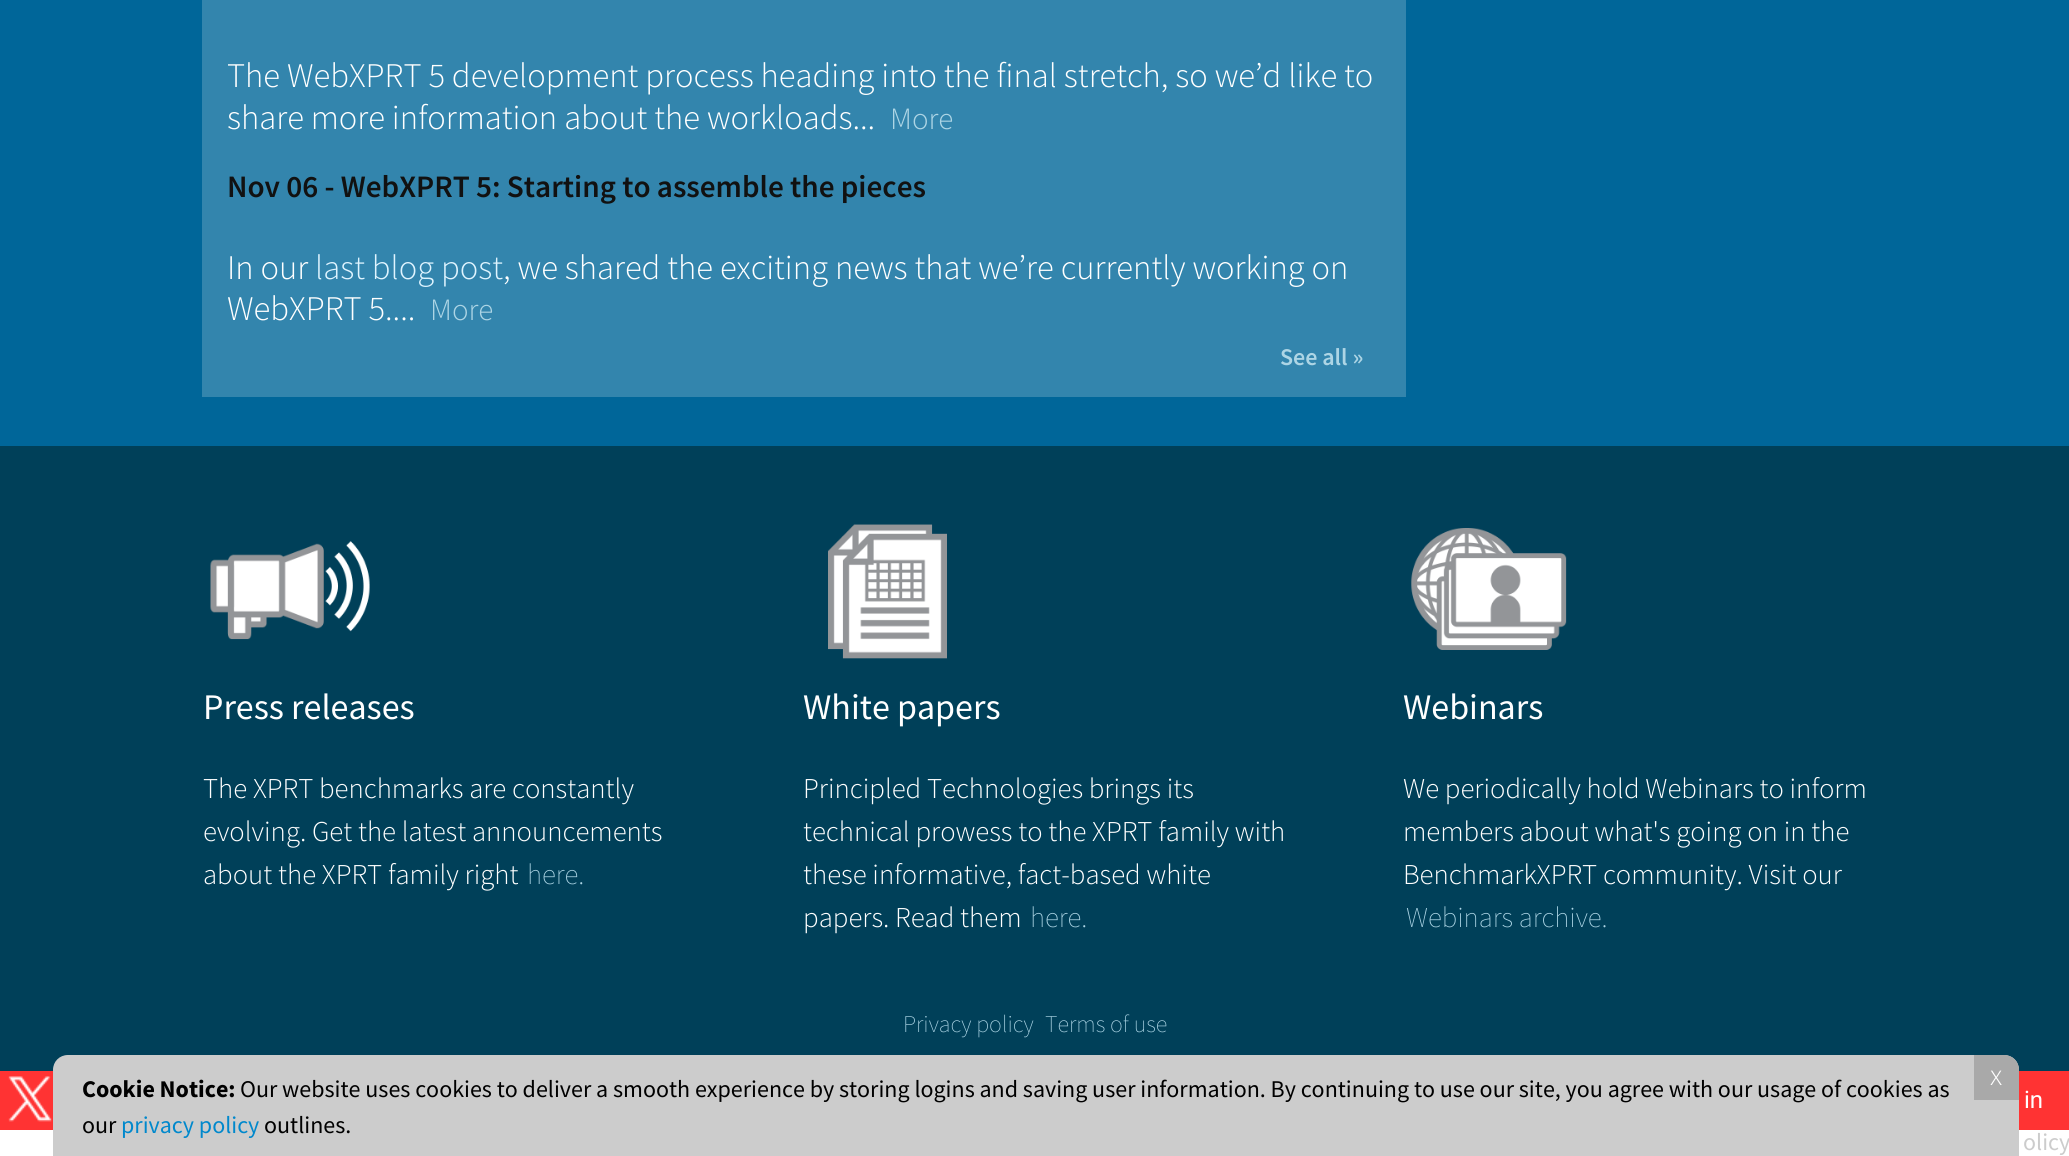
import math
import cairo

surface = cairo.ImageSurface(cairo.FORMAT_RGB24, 2069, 1156)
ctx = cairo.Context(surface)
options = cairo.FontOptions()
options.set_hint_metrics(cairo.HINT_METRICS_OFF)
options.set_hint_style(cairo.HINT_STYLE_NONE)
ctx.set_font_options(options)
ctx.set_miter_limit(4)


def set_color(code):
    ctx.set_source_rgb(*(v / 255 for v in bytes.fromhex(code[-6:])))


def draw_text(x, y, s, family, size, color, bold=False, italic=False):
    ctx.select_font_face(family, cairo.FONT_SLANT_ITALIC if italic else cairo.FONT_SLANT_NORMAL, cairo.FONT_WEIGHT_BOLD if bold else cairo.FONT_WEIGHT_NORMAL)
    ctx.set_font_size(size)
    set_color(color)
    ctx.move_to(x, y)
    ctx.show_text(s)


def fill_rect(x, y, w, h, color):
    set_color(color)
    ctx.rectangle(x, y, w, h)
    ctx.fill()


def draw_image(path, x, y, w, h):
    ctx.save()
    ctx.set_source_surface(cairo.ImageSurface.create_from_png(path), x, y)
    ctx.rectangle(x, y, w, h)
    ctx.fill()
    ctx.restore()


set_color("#ffffff")
ctx.paint()
fill_rect(0, 0, 2069, 446, "#006699")
fill_rect(202, 0, 1204, 397, "#3385ad")
draw_text(227, 87, "The WebXPRT 5 development process heading into the final stretch, so we’d like to", "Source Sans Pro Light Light", 34.55, "#ffffff")
draw_text(227, 129, "share more information about the workloads...", "Source Sans Pro Light Light", 34.55, "#ffffff")
draw_text(890, 129, "More", "Source Sans Pro Light Light", 31, "#add5e5")
draw_text(227, 197, "Nov 06 - WebXPRT 5: Starting to assemble the pieces", "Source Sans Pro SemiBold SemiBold", 31.2, "#111111")
draw_text(227, 279, "In our", "Source Sans Pro Light Light", 34.55, "#ffffff")
draw_text(315, 279, "last blog post", "Source Sans Pro Light Light", 34.55, "#dff4ff")
draw_text(503, 279, ", we shared the exciting news that we’re currently working on", "Source Sans Pro Light Light", 34.55, "#ffffff")
draw_text(227, 320, "WebXPRT 5....", "Source Sans Pro Light Light", 34.55, "#ffffff")
draw_text(430, 320, "More", "Source Sans Pro Light Light", 31, "#add5e5")
draw_text(1280, 365, "See all »", "Source Sans Pro SemiBold SemiBold", 24, "#add5e5")
fill_rect(0, 446, 2069, 625, "#004059")
draw_image("assets/img1.png", 210, 541, 160, 99)
draw_text(203, 719, "Press releases", "Source Sans Pro", 36, "#ffffff")
draw_text(203, 798, "The XPRT benchmarks are constantly", "Source Sans Pro Light Light", 28.75, "#ffffff")
draw_text(203, 841, "evolving. Get the latest announcements", "Source Sans Pro Light Light", 28.75, "#ffffff")
draw_text(203, 884, "about the XPRT family right", "Source Sans Pro Light Light", 28.75, "#ffffff")
draw_text(527, 884, "here.", "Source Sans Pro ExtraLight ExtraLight", 28.75, "#add5e5")
draw_image("assets/img2.png", 828, 524, 119, 135)
draw_text(803, 719, "White papers", "Source Sans Pro", 36, "#ffffff")
draw_text(803, 798, "Principled Technologies brings its", "Source Sans Pro Light Light", 28.75, "#ffffff")
draw_text(803, 841, "technical prowess to the XPRT family with", "Source Sans Pro Light Light", 28.75, "#ffffff")
draw_text(803, 884, "these informative, fact-based white", "Source Sans Pro Light Light", 28.75, "#ffffff")
draw_text(803, 927, "papers. Read them", "Source Sans Pro Light Light", 28.75, "#ffffff")
draw_text(1030, 927, "here.", "Source Sans Pro ExtraLight ExtraLight", 28.75, "#add5e5")
draw_image("assets/img3.png", 1411, 528, 156, 122)
draw_text(1403, 719, "Webinars", "Source Sans Pro", 36, "#ffffff")
draw_text(1403, 798, "We periodically hold Webinars to inform", "Source Sans Pro Light Light", 28.75, "#ffffff")
draw_text(1403, 841, "members about what's going on in the", "Source Sans Pro Light Light", 28.75, "#ffffff")
draw_text(1403, 884, "BenchmarkXPRT community. Visit our", "Source Sans Pro Light Light", 28.75, "#ffffff")
draw_text(1406, 927, "Webinars archive.", "Source Sans Pro ExtraLight ExtraLight", 28.75, "#add5e5")
draw_text(903, 1032, "Privacy policy", "Source Sans Pro ExtraLight ExtraLight", 24, "#add5e5")
draw_text(1045, 1032, "Terms of use", "Source Sans Pro ExtraLight ExtraLight", 24, "#add5e5")
fill_rect(0, 1071, 2069, 59, "#ff3333")
set_color("#cccccc")
ctx.new_path()
ctx.move_to(68, 1055)
ctx.line_to(2004, 1055)
ctx.curve_to(2012.5, 1055, 2019, 1061.5, 2019, 1070)
ctx.line_to(2019, 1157)
ctx.line_to(53, 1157)
ctx.line_to(53, 1070)
ctx.curve_to(53, 1061.5, 59.5, 1055, 68, 1055)
ctx.close_path()
ctx.fill()
set_color("#a9a9a9")
ctx.new_path()
ctx.move_to(1974, 1055)
ctx.line_to(2004, 1055)
ctx.curve_to(2012.5, 1055, 2019, 1061.5, 2019, 1070)
ctx.line_to(2019, 1100)
ctx.line_to(1974, 1100)
ctx.close_path()
ctx.fill()
draw_text(1990, 1085, "x", "Source Sans Pro Light Light", 30, "#ffffff")
draw_text(82, 1097, "Cookie Notice:", "Source Sans Pro", 24, "#000000", bold=True)
draw_text(240, 1097, "Our website uses cookies to deliver a smooth experience by storing logins and saving user information. By continuing to use our site, you agree with our usage of cookies as", "Source Sans Pro", 24, "#000000")
draw_text(82, 1133, "our", "Source Sans Pro", 24, "#000000")
draw_text(121, 1133, "privacy policy", "Source Sans Pro", 24, "#0088cc")
draw_text(264, 1133, "outlines.", "Source Sans Pro", 24, "#000000")
draw_image("assets/img4.png", 8, 1076, 44, 46)
draw_text(2024, 1108, "in", "Roboto", 24, "#ffffff")
draw_text(2023, 1150, "olicy", "Source Sans Pro", 24, "#cccccc")
surface.write_to_png("output.png")
